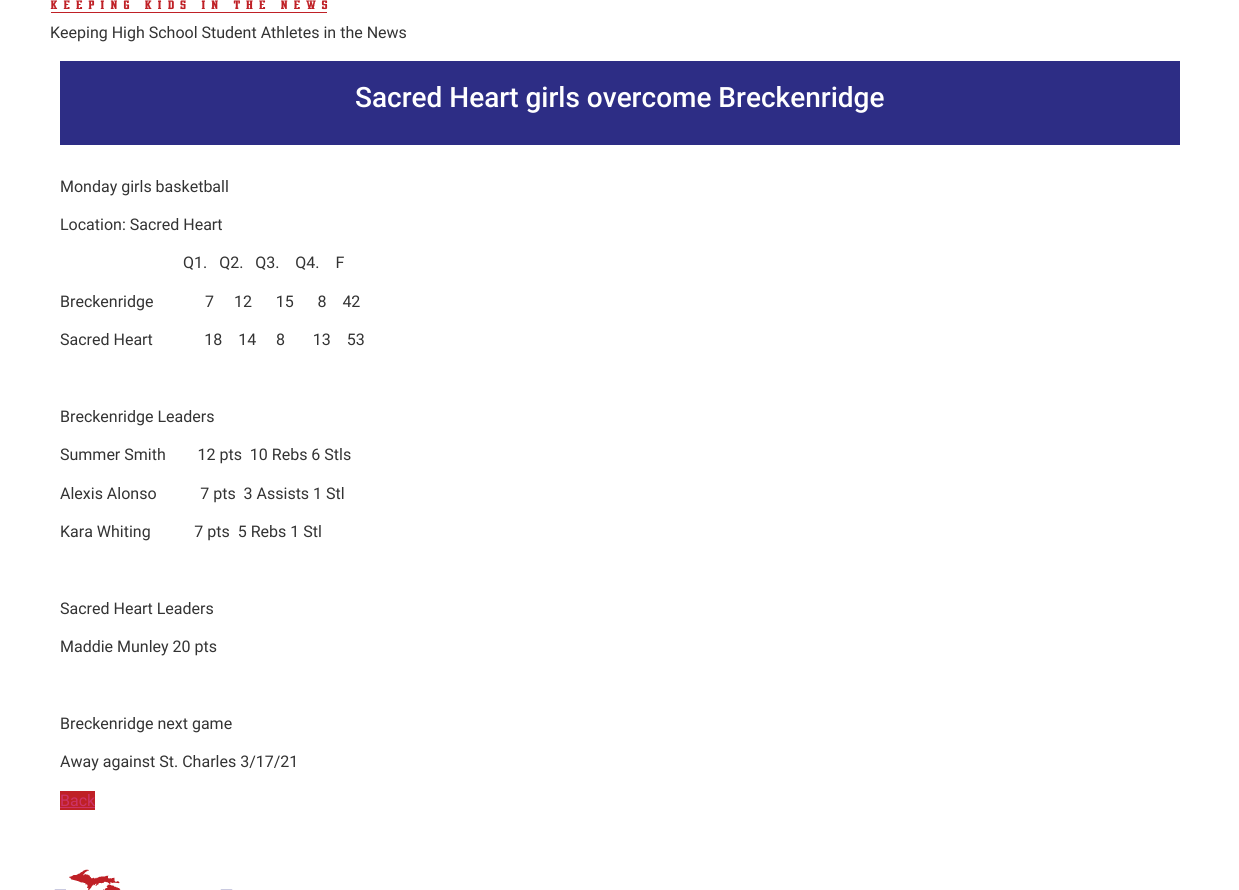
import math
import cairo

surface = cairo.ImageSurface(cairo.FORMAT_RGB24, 1239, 890)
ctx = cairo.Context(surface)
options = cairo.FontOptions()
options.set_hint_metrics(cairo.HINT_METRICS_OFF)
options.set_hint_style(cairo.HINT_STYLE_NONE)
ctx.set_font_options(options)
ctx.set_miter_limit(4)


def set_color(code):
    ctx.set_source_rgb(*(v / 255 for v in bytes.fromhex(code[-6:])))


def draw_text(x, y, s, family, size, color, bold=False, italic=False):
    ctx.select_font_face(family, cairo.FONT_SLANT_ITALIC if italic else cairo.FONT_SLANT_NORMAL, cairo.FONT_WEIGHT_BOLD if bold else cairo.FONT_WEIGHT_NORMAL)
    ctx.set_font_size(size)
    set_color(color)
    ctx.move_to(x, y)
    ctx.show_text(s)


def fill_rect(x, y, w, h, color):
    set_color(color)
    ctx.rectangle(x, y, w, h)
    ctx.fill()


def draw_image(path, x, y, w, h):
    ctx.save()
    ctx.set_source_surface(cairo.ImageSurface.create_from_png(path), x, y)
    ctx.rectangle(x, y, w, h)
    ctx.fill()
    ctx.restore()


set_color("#ffffff")
ctx.paint()
draw_image("assets/img1.png", 50, 0, 278, 13)
draw_text(50, 38, "Keeping High School Student Athletes in the News", "Roboto", 16, "#333333")
fill_rect(60, 61, 1120, 84, "#2d2d85")
draw_text(355, 107, "Sacred Heart girls overcome Breckenridge", "Roboto Medium", 28, "#ffffff")
draw_text(60, 192, "Monday girls basketball", "Roboto", 16, "#333333")
draw_text(60, 230, "Location: Sacred Heart", "Roboto", 16, "#333333")
draw_text(183, 268, "Q1.   Q2.   Q3.    Q4.    F", "Roboto", 16, "#333333")
draw_text(60, 307, "Breckenridge             7     12      15      8    42", "Roboto", 16, "#333333")
draw_text(60, 345, "Sacred Heart             18    14     8       13    53", "Roboto", 16, "#333333")
draw_text(60, 422, "Breckenridge Leaders", "Roboto", 16, "#333333")
draw_text(60, 460, "Summer Smith        12 pts  10 Rebs 6 Stls", "Roboto", 16, "#333333")
draw_text(60, 499, "Alexis Alonso           7 pts  3 Assists 1 Stl", "Roboto", 16, "#333333")
draw_text(60, 537, "Kara Whiting           7 pts  5 Rebs 1 Stl", "Roboto", 16, "#333333")
draw_text(60, 614, "Sacred Heart Leaders", "Roboto", 16, "#333333")
draw_text(60, 652, "Maddie Munley 20 pts", "Roboto", 16, "#333333")
draw_text(60, 729, "Breckenridge next game", "Roboto", 16, "#333333")
draw_text(60, 767, "Away against St. Charles 3/17/21", "Roboto", 16, "#333333")
fill_rect(60, 791, 35, 19, "#bf2026")
draw_text(60, 806, "Back", "Roboto", 16, "#cc3366")
fill_rect(60, 807, 35, 1, "#cc3366")
draw_image("assets/img2.png", 54, 869, 179, 21)
surface.write_to_png("output.png")
